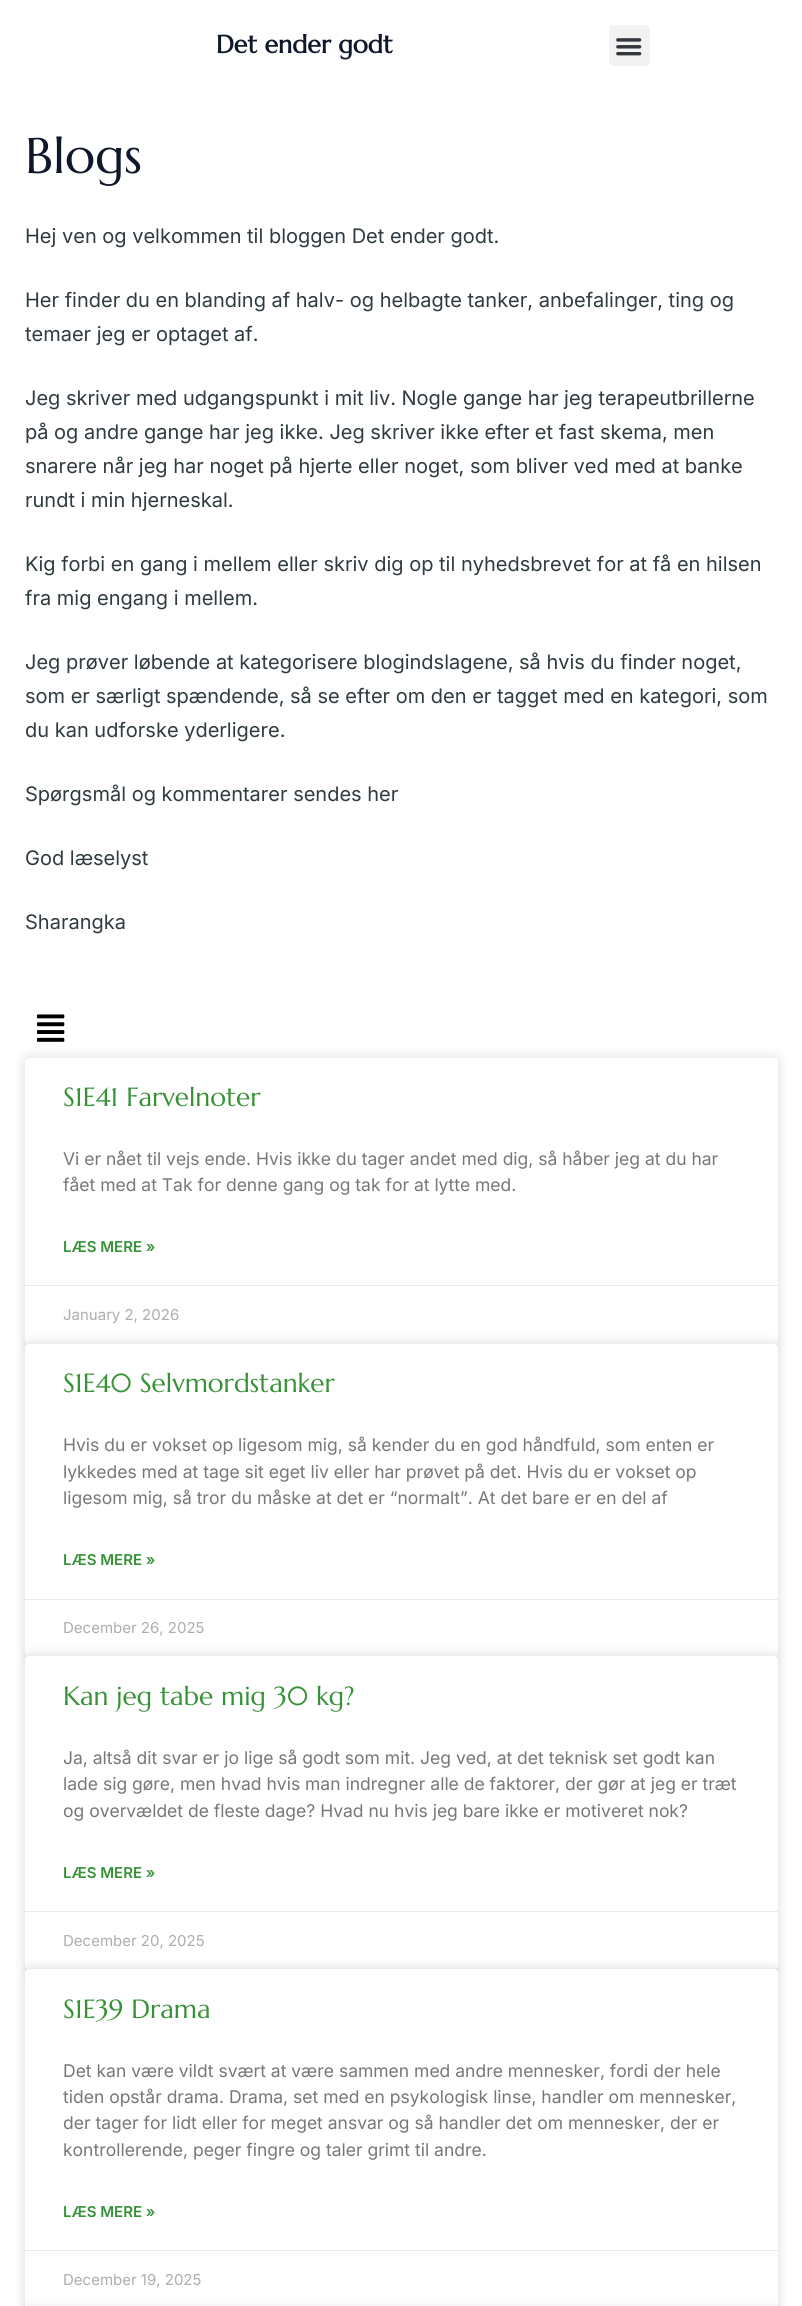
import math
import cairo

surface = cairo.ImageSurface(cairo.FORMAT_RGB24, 802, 2306)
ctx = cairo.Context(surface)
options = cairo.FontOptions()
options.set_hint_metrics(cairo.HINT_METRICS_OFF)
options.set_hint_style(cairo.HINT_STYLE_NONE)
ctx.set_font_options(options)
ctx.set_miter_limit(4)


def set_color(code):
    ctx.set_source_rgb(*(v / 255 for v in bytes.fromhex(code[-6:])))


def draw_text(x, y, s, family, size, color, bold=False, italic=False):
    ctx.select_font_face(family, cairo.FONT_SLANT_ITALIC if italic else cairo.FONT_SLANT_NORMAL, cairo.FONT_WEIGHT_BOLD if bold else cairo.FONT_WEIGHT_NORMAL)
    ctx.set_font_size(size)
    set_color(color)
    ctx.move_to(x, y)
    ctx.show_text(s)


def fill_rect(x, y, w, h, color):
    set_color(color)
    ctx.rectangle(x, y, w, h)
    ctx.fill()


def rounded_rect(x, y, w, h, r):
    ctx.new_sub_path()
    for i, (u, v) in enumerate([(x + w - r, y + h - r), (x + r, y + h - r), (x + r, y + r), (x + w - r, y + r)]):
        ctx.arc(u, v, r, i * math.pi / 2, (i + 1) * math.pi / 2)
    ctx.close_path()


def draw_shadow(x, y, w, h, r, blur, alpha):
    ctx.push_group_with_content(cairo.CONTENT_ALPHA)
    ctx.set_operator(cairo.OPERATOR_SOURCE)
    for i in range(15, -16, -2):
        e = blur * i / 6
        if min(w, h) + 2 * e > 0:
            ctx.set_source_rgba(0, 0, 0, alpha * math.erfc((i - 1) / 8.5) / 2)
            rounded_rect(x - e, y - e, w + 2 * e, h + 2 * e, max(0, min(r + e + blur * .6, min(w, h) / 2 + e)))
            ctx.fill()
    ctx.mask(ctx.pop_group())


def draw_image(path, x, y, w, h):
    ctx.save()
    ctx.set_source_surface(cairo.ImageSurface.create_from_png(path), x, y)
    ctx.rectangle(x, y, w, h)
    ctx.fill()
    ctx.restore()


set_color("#ffffff")
ctx.paint()
draw_text(216, 53, "Det ender godt", "Marcellus", 25, "#0f172a", bold=True)
set_color("#f2f2f2")
rounded_rect(609, 25, 41, 41, 4)
ctx.fill()
draw_image("assets/img1.png", 616, 38, 26, 18)
draw_text(25, 173, "Blogs", "Marcellus", 50, "#0f172a")
draw_text(25, 243, "Hej ven og velkommen til bloggen Det ender godt.", "Inter", 20, "#2f3b40")
draw_text(25, 307, "Her finder du en blanding af halv- og helbagte tanker, anbefalinger, ting og", "Inter", 20, "#2f3b40")
draw_text(25, 341, "temaer jeg er optaget af.", "Inter", 20, "#2f3b40")
draw_text(25, 405, "Jeg skriver med udgangspunkt i mit liv. Nogle gange har jeg terapeutbrillerne", "Inter", 20, "#2f3b40")
draw_text(25, 439, "på og andre gange har jeg ikke. Jeg skriver ikke efter et fast skema, men", "Inter", 20, "#2f3b40")
draw_text(25, 473, "snarere når jeg har noget på hjerte eller noget, som bliver ved med at banke", "Inter", 20, "#2f3b40")
draw_text(25, 507, "rundt i min hjerneskal.", "Inter", 20, "#2f3b40")
draw_text(25, 571, "Kig forbi en gang i mellem eller skriv dig op til nyhedsbrevet for at få en hilsen", "Inter", 20, "#2f3b40")
draw_text(25, 605, "fra mig engang i mellem.", "Inter", 20, "#2f3b40")
draw_text(25, 669, "Jeg prøver løbende at kategorisere blogindslagene, så hvis du finder noget,", "Inter", 20, "#2f3b40")
draw_text(25, 703, "som er særligt spændende, så se efter om den er tagget med en kategori, som", "Inter", 20, "#2f3b40")
draw_text(25, 737, "du kan udforske yderligere.", "Inter", 20, "#2f3b40")
draw_text(25, 801, "Spørgsmål og kommentarer sendes her", "Inter", 20, "#2f3b40")
draw_text(25, 865, "God læselyst", "Inter", 20, "#2f3b40")
draw_text(25, 929, "Sharangka", "Inter", 20, "#2f3b40")
draw_image("assets/img2.png", 36, 1014, 29, 28)
set_color("#000000")
draw_shadow(25, 1058, 753, 286, 4, 6, 0.15)
set_color("#ffffff")
rounded_rect(25, 1058, 753, 286, 4)
ctx.fill()
draw_text(63, 1106, "S1E41 Farvelnoter", "Marcellus", 26.25, "#379237")
draw_text(63, 1165, "Vi er nået til vejs ende. Hvis ikke du tager andet med dig, så håber jeg at du har", "Inter", 17.5, "#777777")
draw_text(63, 1191, "fået med at Tak for denne gang og tak for at lytte med.", "Inter", 17.5, "#777777")
draw_text(63, 1252, "LÆS MERE »", "Inter SemiBold", 15, "#379237")
fill_rect(25, 1285, 753, 1, "#eaeaea")
draw_text(63, 1320, "January 2, 2026", "Inter", 15, "#adadad")
set_color("#000000")
draw_shadow(25, 1344, 753, 312, 4, 6, 0.15)
set_color("#ffffff")
rounded_rect(25, 1344, 753, 312, 4)
ctx.fill()
draw_text(63, 1392, "S1E40 Selvmordstanker", "Marcellus", 26.25, "#379237")
draw_text(63, 1451, "Hvis du er vokset op ligesom mig, så kender du en god håndfuld, som enten er", "Inter", 17.5, "#777777")
draw_text(63, 1478, "lykkedes med at tage sit eget liv eller har prøvet på det. Hvis du er vokset op", "Inter", 17.5, "#777777")
draw_text(63, 1504, "ligesom mig, så tror du måske at det er “normalt”. At det bare er en del af", "Inter", 17.5, "#777777")
draw_text(63, 1565, "LÆS MERE »", "Inter SemiBold", 15, "#379237")
fill_rect(25, 1599, 753, 1, "#eaeaea")
draw_text(63, 1633, "December 26, 2025", "Inter", 15, "#adadad")
set_color("#000000")
draw_shadow(25, 1656, 753, 313, 4, 6, 0.15)
set_color("#ffffff")
rounded_rect(25, 1656, 753, 313, 4)
ctx.fill()
draw_text(63, 1705, "Kan jeg tabe mig 30 kg?", "Marcellus", 26.25, "#379237")
draw_text(63, 1764, "Ja, altså dit svar er jo lige så godt som mit. Jeg ved, at det teknisk set godt kan", "Inter", 17.5, "#777777")
draw_text(63, 1790, "lade sig gøre, men hvad hvis man indregner alle de faktorer, der gør at jeg er træt", "Inter", 17.5, "#777777")
draw_text(63, 1817, "og overvældet de fleste dage? Hvad nu hvis jeg bare ikke er motiveret nok?", "Inter", 17.5, "#777777")
draw_text(63, 1878, "LÆS MERE »", "Inter SemiBold", 15, "#379237")
fill_rect(25, 1911, 753, 1, "#eaeaea")
draw_text(63, 1946, "December 20, 2025", "Inter", 15, "#adadad")
set_color("#000000")
draw_shadow(25, 1969, 753, 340, 4, 6, 0.15)
set_color("#ffffff")
rounded_rect(25, 1969, 753, 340, 4)
ctx.fill()
draw_text(63, 2018, "S1E39 Drama", "Marcellus", 26.25, "#379237")
draw_text(63, 2077, "Det kan være vildt svært at være sammen med andre mennesker, fordi der hele", "Inter", 17.5, "#777777")
draw_text(63, 2103, "tiden opstår drama. Drama, set med en psykologisk linse, handler om mennesker,", "Inter", 17.5, "#777777")
draw_text(63, 2129, "der tager for lidt eller for meget ansvar og så handler det om mennesker, der er", "Inter", 17.5, "#777777")
draw_text(63, 2156, "kontrollerende, peger fingre og taler grimt til andre.", "Inter", 17.5, "#777777")
draw_text(63, 2217, "LÆS MERE »", "Inter SemiBold", 15, "#379237")
fill_rect(25, 2250, 753, 1, "#eaeaea")
draw_text(63, 2285, "December 19, 2025", "Inter", 15, "#adadad")
set_color("#000000")
draw_shadow(25, 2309, 753, 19, 4, 6, 0.15)
surface.write_to_png("output.png")
